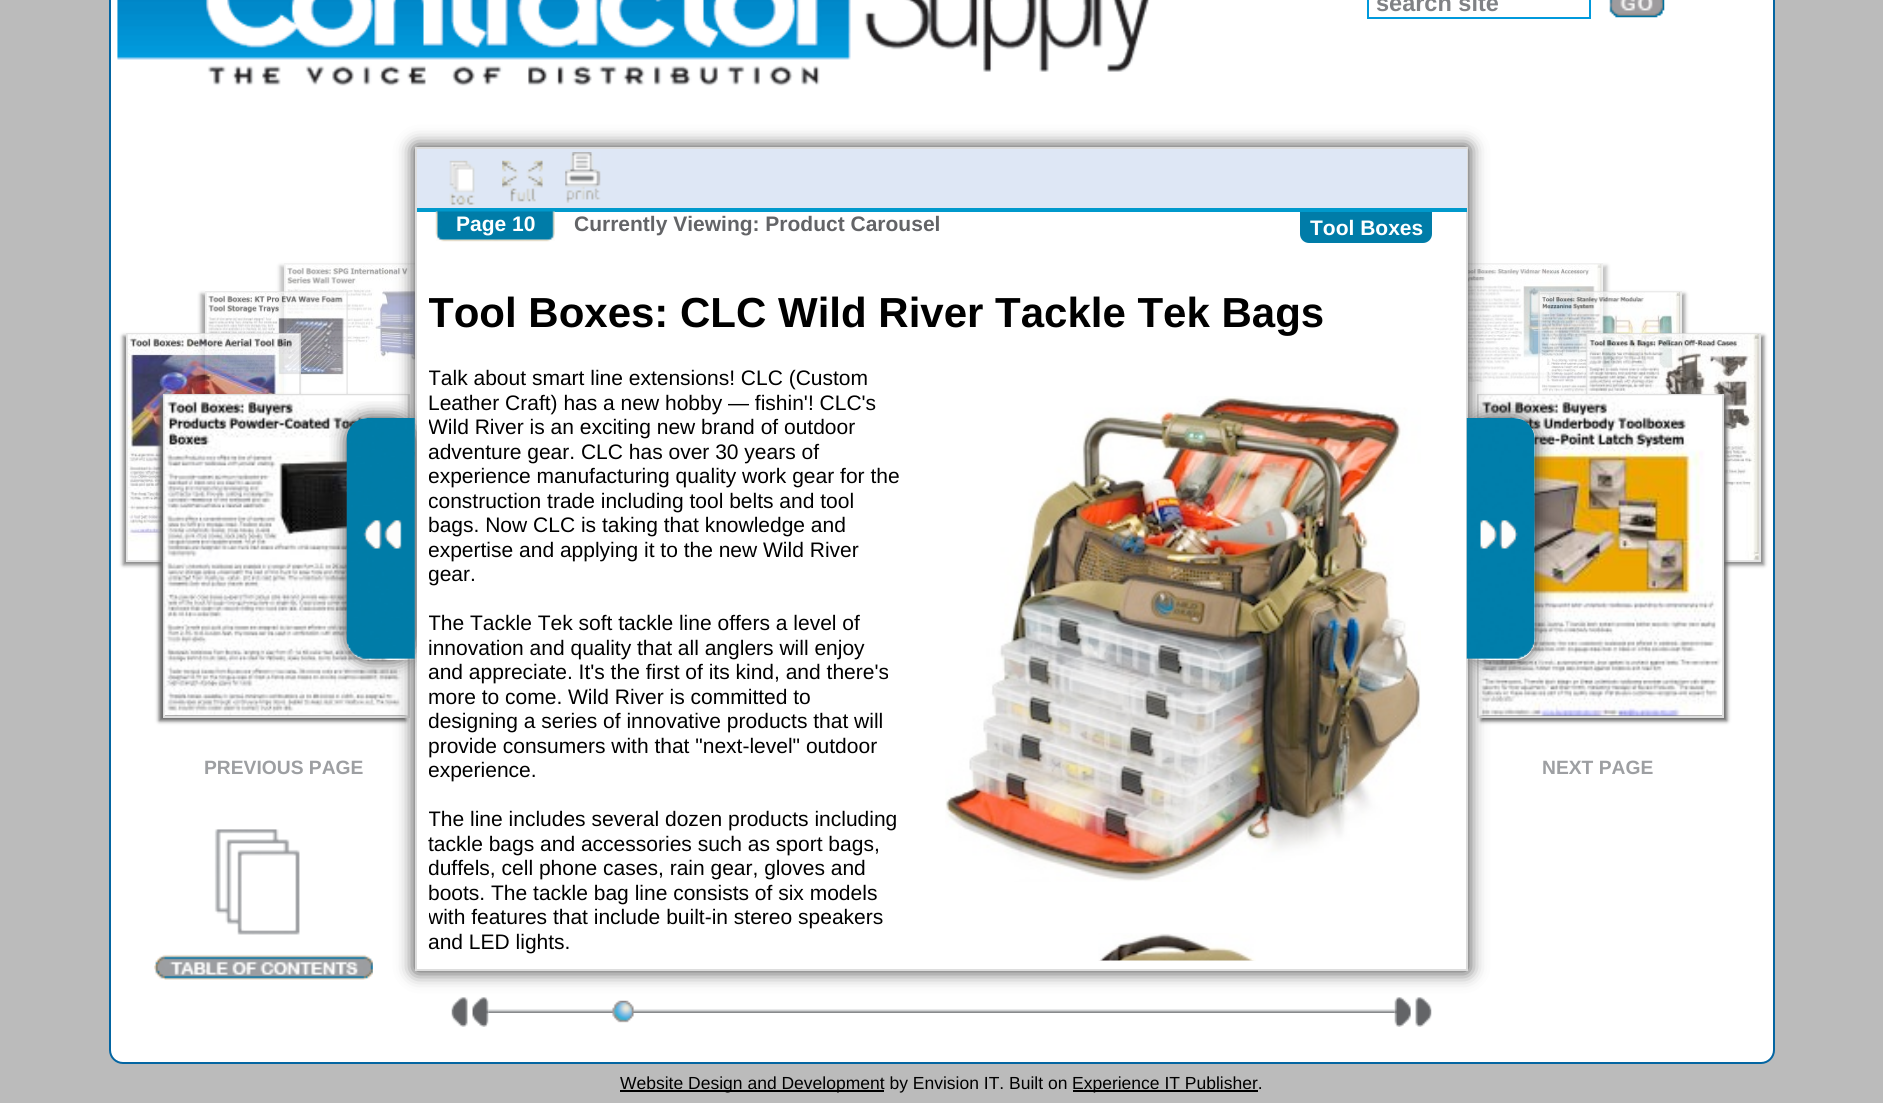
import math
import cairo

surface = cairo.ImageSurface(cairo.FORMAT_RGB24, 1883, 1103)
ctx = cairo.Context(surface)
options = cairo.FontOptions()
options.set_hint_metrics(cairo.HINT_METRICS_OFF)
options.set_hint_style(cairo.HINT_STYLE_NONE)
ctx.set_font_options(options)
ctx.set_miter_limit(4)


def set_color(code):
    ctx.set_source_rgb(*(v / 255 for v in bytes.fromhex(code[-6:])))


def draw_text(x, y, s, family, size, color, bold=False, italic=False):
    ctx.select_font_face(family, cairo.FONT_SLANT_ITALIC if italic else cairo.FONT_SLANT_NORMAL, cairo.FONT_WEIGHT_BOLD if bold else cairo.FONT_WEIGHT_NORMAL)
    ctx.set_font_size(size)
    set_color(color)
    ctx.move_to(x, y)
    ctx.show_text(s)


def fill_rect(x, y, w, h, color):
    set_color(color)
    ctx.rectangle(x, y, w, h)
    ctx.fill()


def rounded_rect(x, y, w, h, r):
    ctx.new_sub_path()
    for i, (u, v) in enumerate([(x + w - r, y + h - r), (x + r, y + h - r), (x + r, y + r), (x + w - r, y + r)]):
        ctx.arc(u, v, r, i * math.pi / 2, (i + 1) * math.pi / 2)
    ctx.close_path()


def draw_shadow(x, y, w, h, r, blur, alpha):
    ctx.push_group_with_content(cairo.CONTENT_ALPHA)
    ctx.set_operator(cairo.OPERATOR_SOURCE)
    for i in range(15, -16, -2):
        e = blur * i / 6
        if min(w, h) + 2 * e > 0:
            ctx.set_source_rgba(0, 0, 0, alpha * math.erfc((i - 1) / 8.5) / 2)
            rounded_rect(x - e, y - e, w + 2 * e, h + 2 * e, max(0, min(r + e + blur * .6, min(w, h) / 2 + e)))
            ctx.fill()
    ctx.mask(ctx.pop_group())


def draw_image(path, x, y, w, h):
    ctx.save()
    ctx.set_source_surface(cairo.ImageSurface.create_from_png(path), x, y)
    ctx.rectangle(x, y, w, h)
    ctx.fill()
    ctx.restore()


set_color("#bbbbbb")
ctx.paint()
set_color("#ffffff")
rounded_rect(110, -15, 1664, 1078, 13)
ctx.fill_preserve()
set_color("#0365a2")
ctx.stroke()
draw_image("assets/img1.png", 117, 0, 1033, 86)
ctx.rectangle(1368, -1, 222, 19)
set_color("#0099dc")
ctx.stroke()
draw_text(1376, 11, "search site", "Liberation Sans", 23.5, "#808285", bold=True)
draw_image("assets/img2.png", 1609, 0, 56, 18)
ctx.save()
ctx.set_fill_rule(cairo.FILL_RULE_EVEN_ODD)
ctx.new_path()
ctx.move_to(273, 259)
ctx.line_to(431, 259)
ctx.line_to(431, 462)
ctx.line_to(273, 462)
ctx.close_path()
ctx.move_to(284, 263)
ctx.line_to(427, 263)
ctx.line_to(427, 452)
ctx.line_to(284, 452)
ctx.close_path()
ctx.clip()
set_color("#c2c2c2")
draw_shadow(280, 266, 144, 189, 0, 2, 1)
ctx.restore()
ctx.rectangle(285, 264, 141, 187)
set_color("#f1f1f1")
ctx.stroke()
draw_image("assets/img3.png", 285, 264, 130, 185)
ctx.save()
ctx.rectangle(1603, 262, 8, 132)
ctx.clip()
set_color("#c2c2c2")
draw_shadow(1463, 266, 144, 189, 0, 2, 1)
ctx.restore()
ctx.rectangle(1461, 264, 141, 187)
ctx.stroke()
draw_image("assets/img10.png", 1468, 264, 134, 154)
ctx.save()
ctx.rectangle(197, 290, 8, 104)
ctx.clip()
set_color("#666666")
draw_shadow(201, 294, 144, 189, 0, 2, 0.6)
ctx.restore()
ctx.rectangle(206, 292, 141, 187)
ctx.set_source_rgba(0.867, 0.867, 0.867, 0.6)
ctx.stroke()
draw_image("assets/img11.png", 206, 292, 141, 102)
ctx.save()
ctx.set_fill_rule(cairo.FILL_RULE_EVEN_ODD)
ctx.new_path()
ctx.move_to(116, 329)
ctx.line_to(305, 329)
ctx.line_to(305, 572)
ctx.line_to(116, 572)
ctx.close_path()
ctx.move_to(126, 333)
ctx.line_to(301, 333)
ctx.line_to(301, 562)
ctx.line_to(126, 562)
ctx.close_path()
ctx.clip()
set_color("#666666")
draw_shadow(123, 336, 175, 229, 0, 2, 0.8)
ctx.restore()
ctx.rectangle(127, 334, 173, 227)
ctx.set_source_rgba(0.867, 0.867, 0.867, 0.8)
ctx.stroke()
draw_image("assets/img13.png", 127, 334, 173, 226)
set_color("#666666")
draw_shadow(159, 397, 247, 324, 0, 2, 1)
ctx.rectangle(164, 395, 245, 322)
set_color("#dddddd")
ctx.stroke()
draw_image("assets/img15.png", 164, 395, 244, 321)
ctx.save()
ctx.set_fill_rule(cairo.FILL_RULE_EVEN_ODD)
ctx.new_path()
ctx.move_to(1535, 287)
ctx.line_to(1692, 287)
ctx.line_to(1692, 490)
ctx.line_to(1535, 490)
ctx.close_path()
ctx.move_to(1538, 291)
ctx.line_to(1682, 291)
ctx.line_to(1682, 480)
ctx.line_to(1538, 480)
ctx.close_path()
ctx.clip()
set_color("#a3a3a3")
draw_shadow(1542, 294, 143, 189, 0, 2, 1)
ctx.restore()
ctx.rectangle(1539, 292, 142, 187)
ctx.set_source_rgba(0.867, 0.867, 0.867, 0.6)
ctx.stroke()
draw_image("assets/img12.png", 1540, 292, 140, 102)
ctx.save()
ctx.set_fill_rule(cairo.FILL_RULE_EVEN_ODD)
ctx.new_path()
ctx.move_to(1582, 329)
ctx.line_to(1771, 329)
ctx.line_to(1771, 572)
ctx.line_to(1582, 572)
ctx.close_path()
ctx.move_to(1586, 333)
ctx.line_to(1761, 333)
ctx.line_to(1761, 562)
ctx.line_to(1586, 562)
ctx.close_path()
ctx.clip()
set_color("#858585")
draw_shadow(1589, 336, 175, 229, 0, 2, 1)
ctx.restore()
ctx.rectangle(1587, 334, 173, 227)
ctx.set_source_rgba(0.867, 0.867, 0.867, 0.8)
ctx.stroke()
draw_image("assets/img14.png", 1587, 334, 172, 226)
set_color("#666666")
draw_shadow(1481, 397, 246, 324, 0, 2, 1)
ctx.rectangle(1478, 395, 245, 322)
set_color("#dddddd")
ctx.stroke()
draw_image("assets/img18.png", 1478, 395, 244, 321)
draw_image("assets/img20.png", 488, 1009, 907, 4)
draw_image("assets/img21.png", 451, 997, 38, 30)
draw_image("assets/img23.png", 1394, 997, 38, 30)
set_color("#333333")
draw_shadow(415, 147, 1053, 824, 0, 9, 1)
fill_rect(417, 212, 1049, 757, "#ffffff")
ctx.rectangle(416, 148, 1051, 822)
set_color("#dddddd")
ctx.stroke()
fill_rect(417, 149, 1050, 59, "#dee7f5")
fill_rect(417, 208, 1050, 4, "#0099cc")
draw_image("assets/img4.png", 449, 160, 26, 45)
draw_image("assets/img5.png", 502, 160, 41, 42)
draw_image("assets/img6.png", 565, 152, 36, 51)
draw_image("assets/img7.png", 435, 211, 120, 31)
draw_text(456, 231, "Page 10", "Liberation Sans", 21, "#ffffff", bold=True)
draw_text(574, 231, "Currently Viewing: Product Carousel", "Liberation Sans", 21, "#636467", bold=True)
set_color("#007ca8")
ctx.new_path()
ctx.move_to(1300, 212)
ctx.line_to(1432, 212)
ctx.line_to(1432, 234)
ctx.curve_to(1432, 239, 1428, 243, 1423, 243)
ctx.line_to(1309, 243)
ctx.curve_to(1304, 243, 1300, 239, 1300, 234)
ctx.close_path()
ctx.fill()
draw_text(1310, 235, "Tool Boxes", "Liberation Sans", 21, "#ffffff", bold=True)
ctx.save()
ctx.rectangle(429, 261, 1027, 700)
ctx.clip()
draw_text(428, 327, "Tool Boxes: CLC Wild River Tackle Tek Bags", "Liberation Sans", 42, "#000000", bold=True)
draw_text(428, 385, "Talk about smart line extensions! CLC (Custom", "Liberation Sans", 21, "#000000")
ctx.restore()
draw_text(428, 410, "Leather Craft) has a new hobby — fishin'! CLC's", "Liberation Sans", 21, "#000000")
ctx.save()
ctx.rectangle(429, 261, 1027, 700)
ctx.clip()
draw_text(428, 434, "Wild River is an exciting new brand of outdoor", "Liberation Sans", 21, "#000000")
ctx.restore()
draw_text(428, 459, "adventure gear. CLC has over 30 years of", "Liberation Sans", 21, "#000000")
ctx.save()
ctx.rectangle(429, 261, 1027, 700)
ctx.clip()
draw_text(428, 483, "experience manufacturing quality work gear for the", "Liberation Sans", 21, "#000000")
draw_text(428, 508, "construction trade including tool belts and tool", "Liberation Sans", 21, "#000000")
ctx.restore()
draw_text(428, 532, "bags. Now CLC is taking that knowledge and", "Liberation Sans", 21, "#000000")
ctx.save()
ctx.rectangle(429, 261, 1027, 700)
ctx.clip()
draw_text(428, 557, "expertise and applying it to the new Wild River", "Liberation Sans", 21, "#000000")
draw_text(428, 581, "gear.", "Liberation Sans", 21, "#000000")
draw_text(428, 630, "The Tackle Tek soft tackle line offers a level of", "Liberation Sans", 21, "#000000")
ctx.restore()
draw_text(428, 655, "innovation and quality that all anglers will enjoy", "Liberation Sans", 21, "#000000")
draw_text(428, 679, "and appreciate. It's the first of its kind, and there's", "Liberation Sans", 21, "#000000")
draw_text(428, 704, "more to come. Wild River is committed to", "Liberation Sans", 21, "#000000")
ctx.save()
ctx.rectangle(429, 261, 1027, 700)
ctx.clip()
draw_text(428, 728, "designing a series of innovative products that will", "Liberation Sans", 21, "#000000")
ctx.restore()
draw_text(428, 753, "provide consumers with that \"next-level\" outdoor", "Liberation Sans", 21, "#000000")
ctx.save()
ctx.rectangle(429, 261, 1027, 700)
ctx.clip()
draw_text(428, 777, "experience.", "Liberation Sans", 21, "#000000")
draw_text(428, 826, "The line includes several dozen products including", "Liberation Sans", 21, "#000000")
ctx.restore()
draw_text(428, 851, "tackle bags and accessories such as sport bags,", "Liberation Sans", 21, "#000000")
ctx.save()
ctx.rectangle(429, 261, 1027, 700)
ctx.clip()
draw_text(428, 875, "duffels, cell phone cases, rain gear, gloves and", "Liberation Sans", 21, "#000000")
ctx.restore()
draw_text(428, 900, "boots. The tackle bag line consists of six models", "Liberation Sans", 21, "#000000")
ctx.save()
ctx.rectangle(429, 261, 1027, 700)
ctx.clip()
draw_text(428, 924, "with features that include built-in stereo speakers", "Liberation Sans", 21, "#000000")
ctx.restore()
draw_text(428, 949, "and LED lights.", "Liberation Sans", 21, "#000000")
draw_image("assets/img8.png", 945, 396, 476, 486)
draw_image("assets/img9.png", 1098, 933, 158, 28)
ctx.save()
ctx.rectangle(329, 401, 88, 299)
ctx.clip()
ctx.set_fill_rule(cairo.FILL_RULE_EVEN_ODD)
ctx.new_path()
ctx.move_to(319, 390)
ctx.line_to(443, 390)
ctx.line_to(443, 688)
ctx.line_to(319, 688)
ctx.close_path()
ctx.move_to(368, 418)
ctx.line_to(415, 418)
ctx.line_to(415, 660)
ctx.line_to(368, 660)
ctx.curve_to(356.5, 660, 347, 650.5, 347, 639)
ctx.line_to(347, 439)
ctx.curve_to(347, 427.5, 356.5, 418, 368, 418)
ctx.close_path()
ctx.clip()
set_color("#333333")
draw_shadow(347, 418, 68, 242, 21, 9, 1)
ctx.restore()
draw_image("assets/img16.png", 346, 418, 69, 241)
ctx.save()
ctx.rectangle(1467, 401, 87, 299)
ctx.clip()
ctx.set_fill_rule(cairo.FILL_RULE_EVEN_ODD)
ctx.new_path()
ctx.move_to(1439, 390)
ctx.line_to(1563, 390)
ctx.line_to(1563, 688)
ctx.line_to(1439, 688)
ctx.close_path()
ctx.move_to(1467, 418)
ctx.line_to(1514, 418)
ctx.curve_to(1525.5, 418, 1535, 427.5, 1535, 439)
ctx.line_to(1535, 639)
ctx.curve_to(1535, 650.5, 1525.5, 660, 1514, 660)
ctx.line_to(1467, 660)
ctx.close_path()
ctx.clip()
set_color("#333333")
draw_shadow(1467, 418, 68, 242, 21, 9, 1)
ctx.restore()
draw_image("assets/img17.png", 1466, 418, 69, 241)
draw_text(204, 774, "PREVIOUS PAGE", "Liberation Sans", 19.25, "#9d9fa2", bold=True)
draw_text(1542, 774, "NEXT PAGE", "Liberation Sans", 19.25, "#9d9fa2", bold=True)
draw_image("assets/img19.png", 154, 829, 219, 151)
draw_image("assets/img22.png", 612, 1000, 22, 23)
fill_rect(620, 1090, 264, 2, "#000000")
draw_text(620, 1089, "Website Design and Development by Envision IT. Built on", "Liberation Sans", 17.5, "#000000")
fill_rect(1073, 1090, 185, 2, "#000000")
draw_text(1072, 1089, "Experience IT Publisher.", "Liberation Sans", 17.5, "#000000")
surface.write_to_png("output.png")
